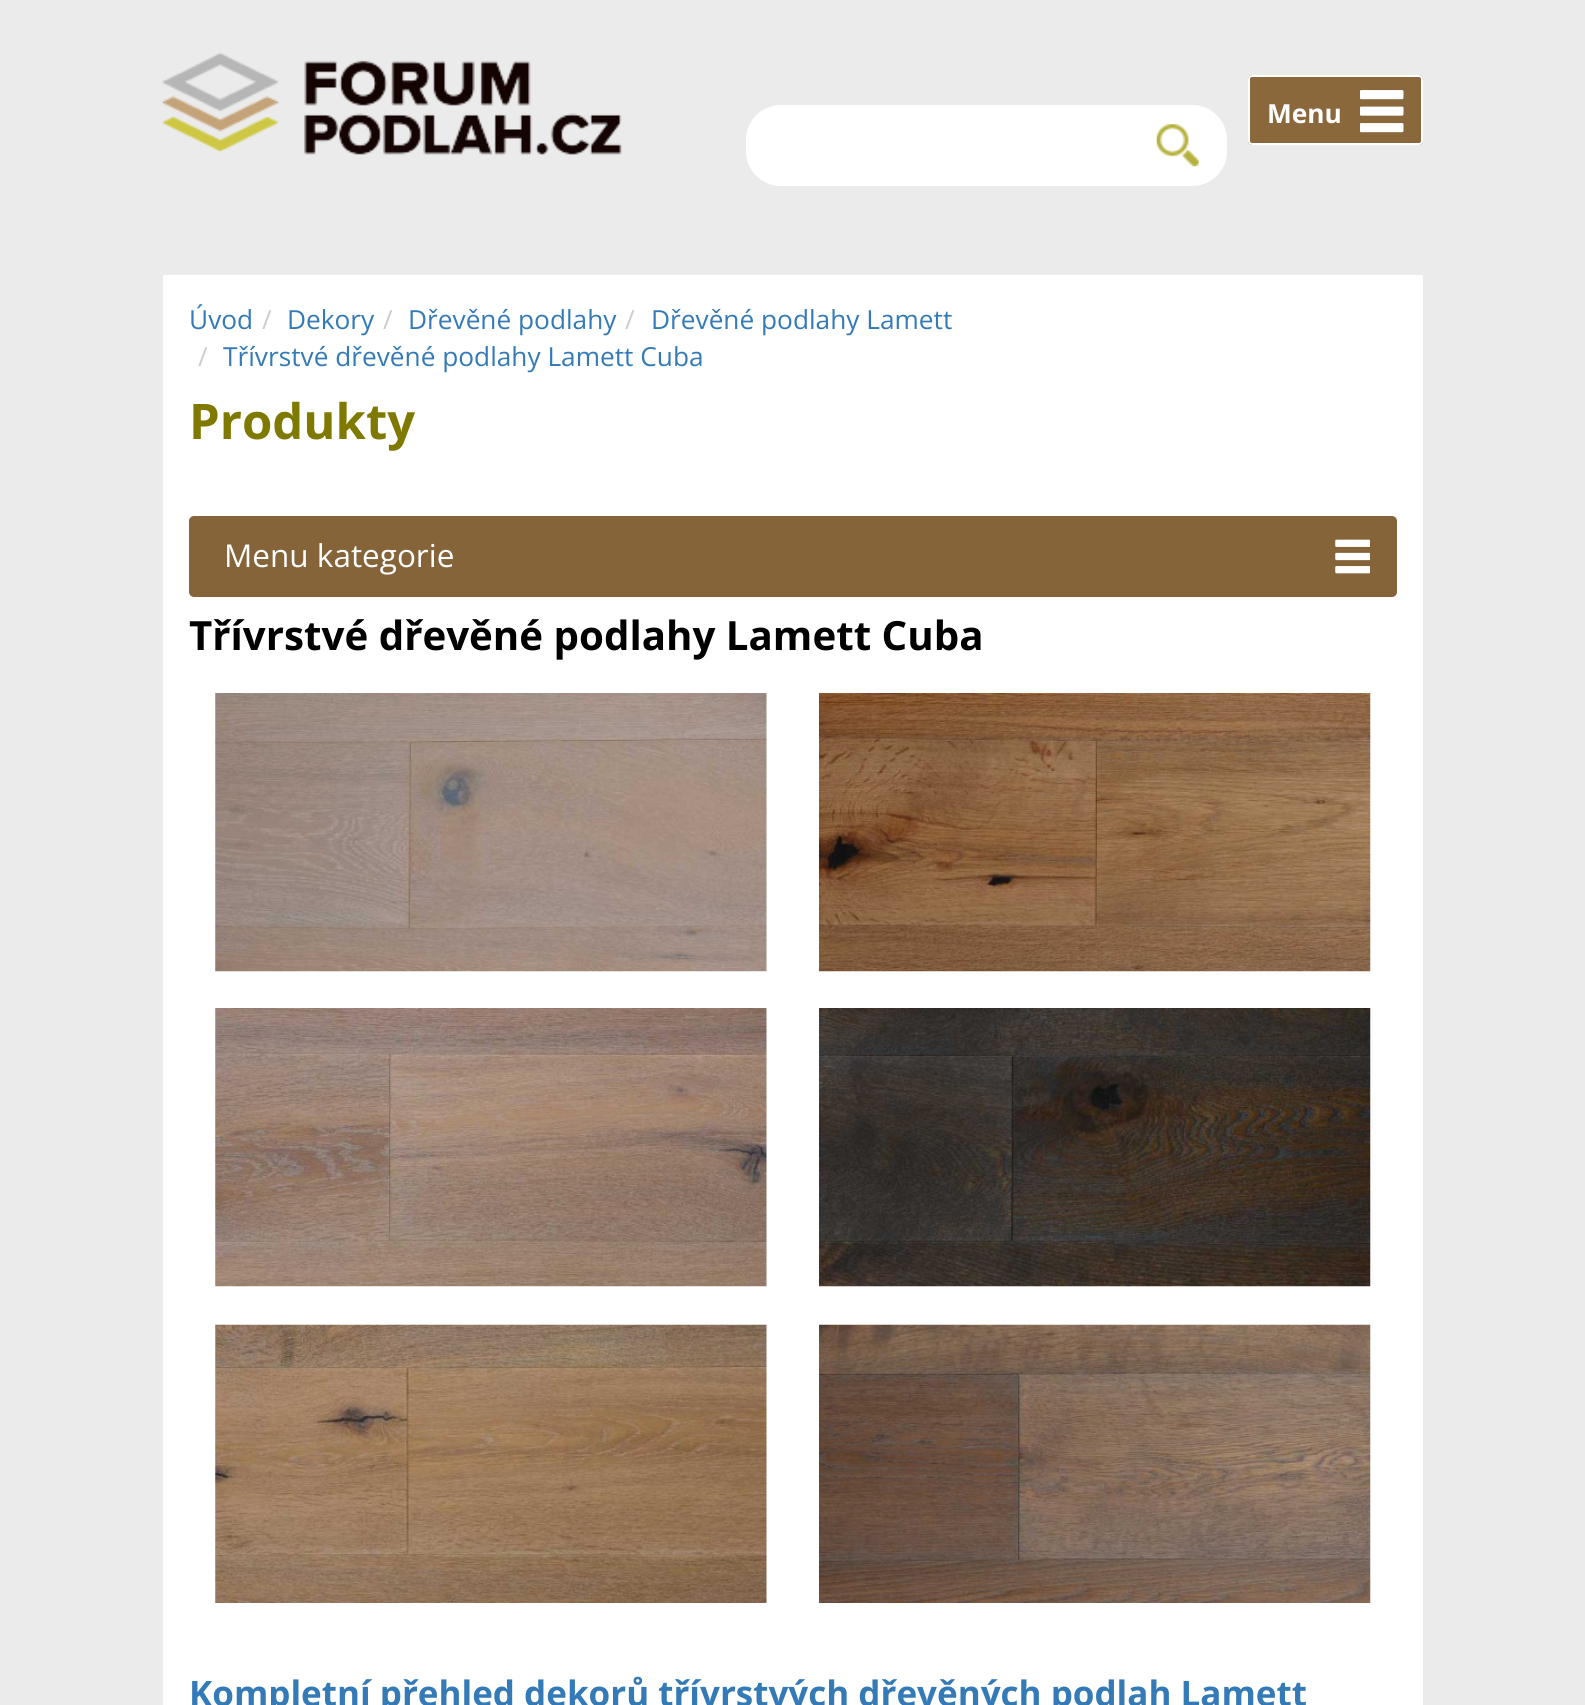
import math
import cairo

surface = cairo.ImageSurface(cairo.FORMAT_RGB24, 1585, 1705)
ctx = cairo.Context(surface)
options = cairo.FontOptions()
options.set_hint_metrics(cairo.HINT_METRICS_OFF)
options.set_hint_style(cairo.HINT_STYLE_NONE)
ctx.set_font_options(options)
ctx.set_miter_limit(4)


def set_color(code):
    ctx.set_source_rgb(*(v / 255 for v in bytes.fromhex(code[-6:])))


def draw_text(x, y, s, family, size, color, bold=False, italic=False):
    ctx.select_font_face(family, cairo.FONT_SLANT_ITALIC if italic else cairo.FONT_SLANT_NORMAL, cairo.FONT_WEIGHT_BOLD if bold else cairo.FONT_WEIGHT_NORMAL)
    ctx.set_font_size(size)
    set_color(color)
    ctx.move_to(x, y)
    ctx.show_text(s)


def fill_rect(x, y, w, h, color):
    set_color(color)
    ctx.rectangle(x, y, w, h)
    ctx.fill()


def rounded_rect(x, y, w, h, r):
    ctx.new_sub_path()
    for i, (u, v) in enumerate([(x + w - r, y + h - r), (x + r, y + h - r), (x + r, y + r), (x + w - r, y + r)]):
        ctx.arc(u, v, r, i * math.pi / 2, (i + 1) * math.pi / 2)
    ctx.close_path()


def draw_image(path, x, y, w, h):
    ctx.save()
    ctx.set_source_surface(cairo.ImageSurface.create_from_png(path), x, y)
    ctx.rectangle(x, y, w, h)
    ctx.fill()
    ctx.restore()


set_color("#ebebeb")
ctx.paint()
draw_image("assets/img1.png", 162, 52, 460, 103)
set_color("#ffffff")
ctx.new_path()
ctx.move_to(781, 105)
ctx.line_to(1131, 105)
ctx.line_to(1131, 186)
ctx.line_to(781, 186)
ctx.curve_to(761.5, 186, 746, 170.5, 746, 151)
ctx.line_to(746, 140)
ctx.curve_to(746, 120.5, 761.5, 105, 781, 105)
ctx.close_path()
ctx.fill()
ctx.new_path()
ctx.move_to(1131, 105)
ctx.line_to(1192, 105)
ctx.curve_to(1211.5, 105, 1227, 120.5, 1227, 140)
ctx.line_to(1227, 151)
ctx.curve_to(1227, 170.5, 1211.5, 186, 1192, 186)
ctx.line_to(1131, 186)
ctx.close_path()
ctx.fill()
draw_image("assets/img2.png", 1156, 124, 43, 43)
set_color("#8b683c")
rounded_rect(1248, 75, 175, 70, 4)
ctx.fill()
draw_image("assets/img3.png", 1360, 90, 44, 43)
rounded_rect(1249, 76, 173, 68, 3)
set_color("#ffffff")
ctx.stroke()
draw_text(1267, 123, "Menu", "Open Sans", 26.25, "#ffffff", bold=True)
fill_rect(163, 275, 1260, 1430, "#ffffff")
draw_text(189, 329, "Úvod", "Open Sans", 26.25, "#337ab7")
draw_text(262, 329, "/", "Open Sans", 26.25, "#cccccc")
draw_text(287, 329, "Dekory", "Open Sans", 26.25, "#337ab7")
draw_text(383, 329, "/", "Open Sans", 26.25, "#cccccc")
draw_text(408, 329, "Dřevěné podlahy", "Open Sans", 26.25, "#337ab7")
draw_text(625, 329, "/", "Open Sans", 26.25, "#cccccc")
draw_text(651, 329, "Dřevěné podlahy Lamett", "Open Sans", 26.25, "#337ab7")
draw_text(198, 366, "/", "Open Sans", 26.25, "#cccccc")
draw_text(223, 366, "Třívrstvé dřevěné podlahy Lamett Cuba", "Open Sans", 26.25, "#337ab7")
draw_text(189, 439, "Produkty", "Open Sans", 49, "#7f7900", bold=True)
set_color("#85643a")
rounded_rect(189, 516, 1208, 81, 5)
ctx.fill()
draw_image("assets/img4.png", 1335, 539, 35, 35)
draw_text(224, 567, "Menu kategorie", "Open Sans", 31.5, "#ffffff")
draw_text(189, 650, "Třívrstvé dřevěné podlahy Lamett Cuba", "Open Sans", 40.25, "#000000", bold=True)
draw_image("assets/img5.png", 215, 693, 552, 279)
draw_image("assets/img6.png", 819, 693, 552, 279)
draw_image("assets/img7.png", 215, 1008, 552, 279)
draw_image("assets/img8.png", 819, 1008, 552, 279)
draw_image("assets/img9.png", 215, 1324, 552, 279)
draw_image("assets/img10.png", 819, 1324, 552, 279)
draw_text(189, 1706, "Kompletní přehled dekorů třívrstvých dřevěných podlah Lamett", "Open Sans", 35, "#337ab7", bold=True)
surface.write_to_png("output.png")
